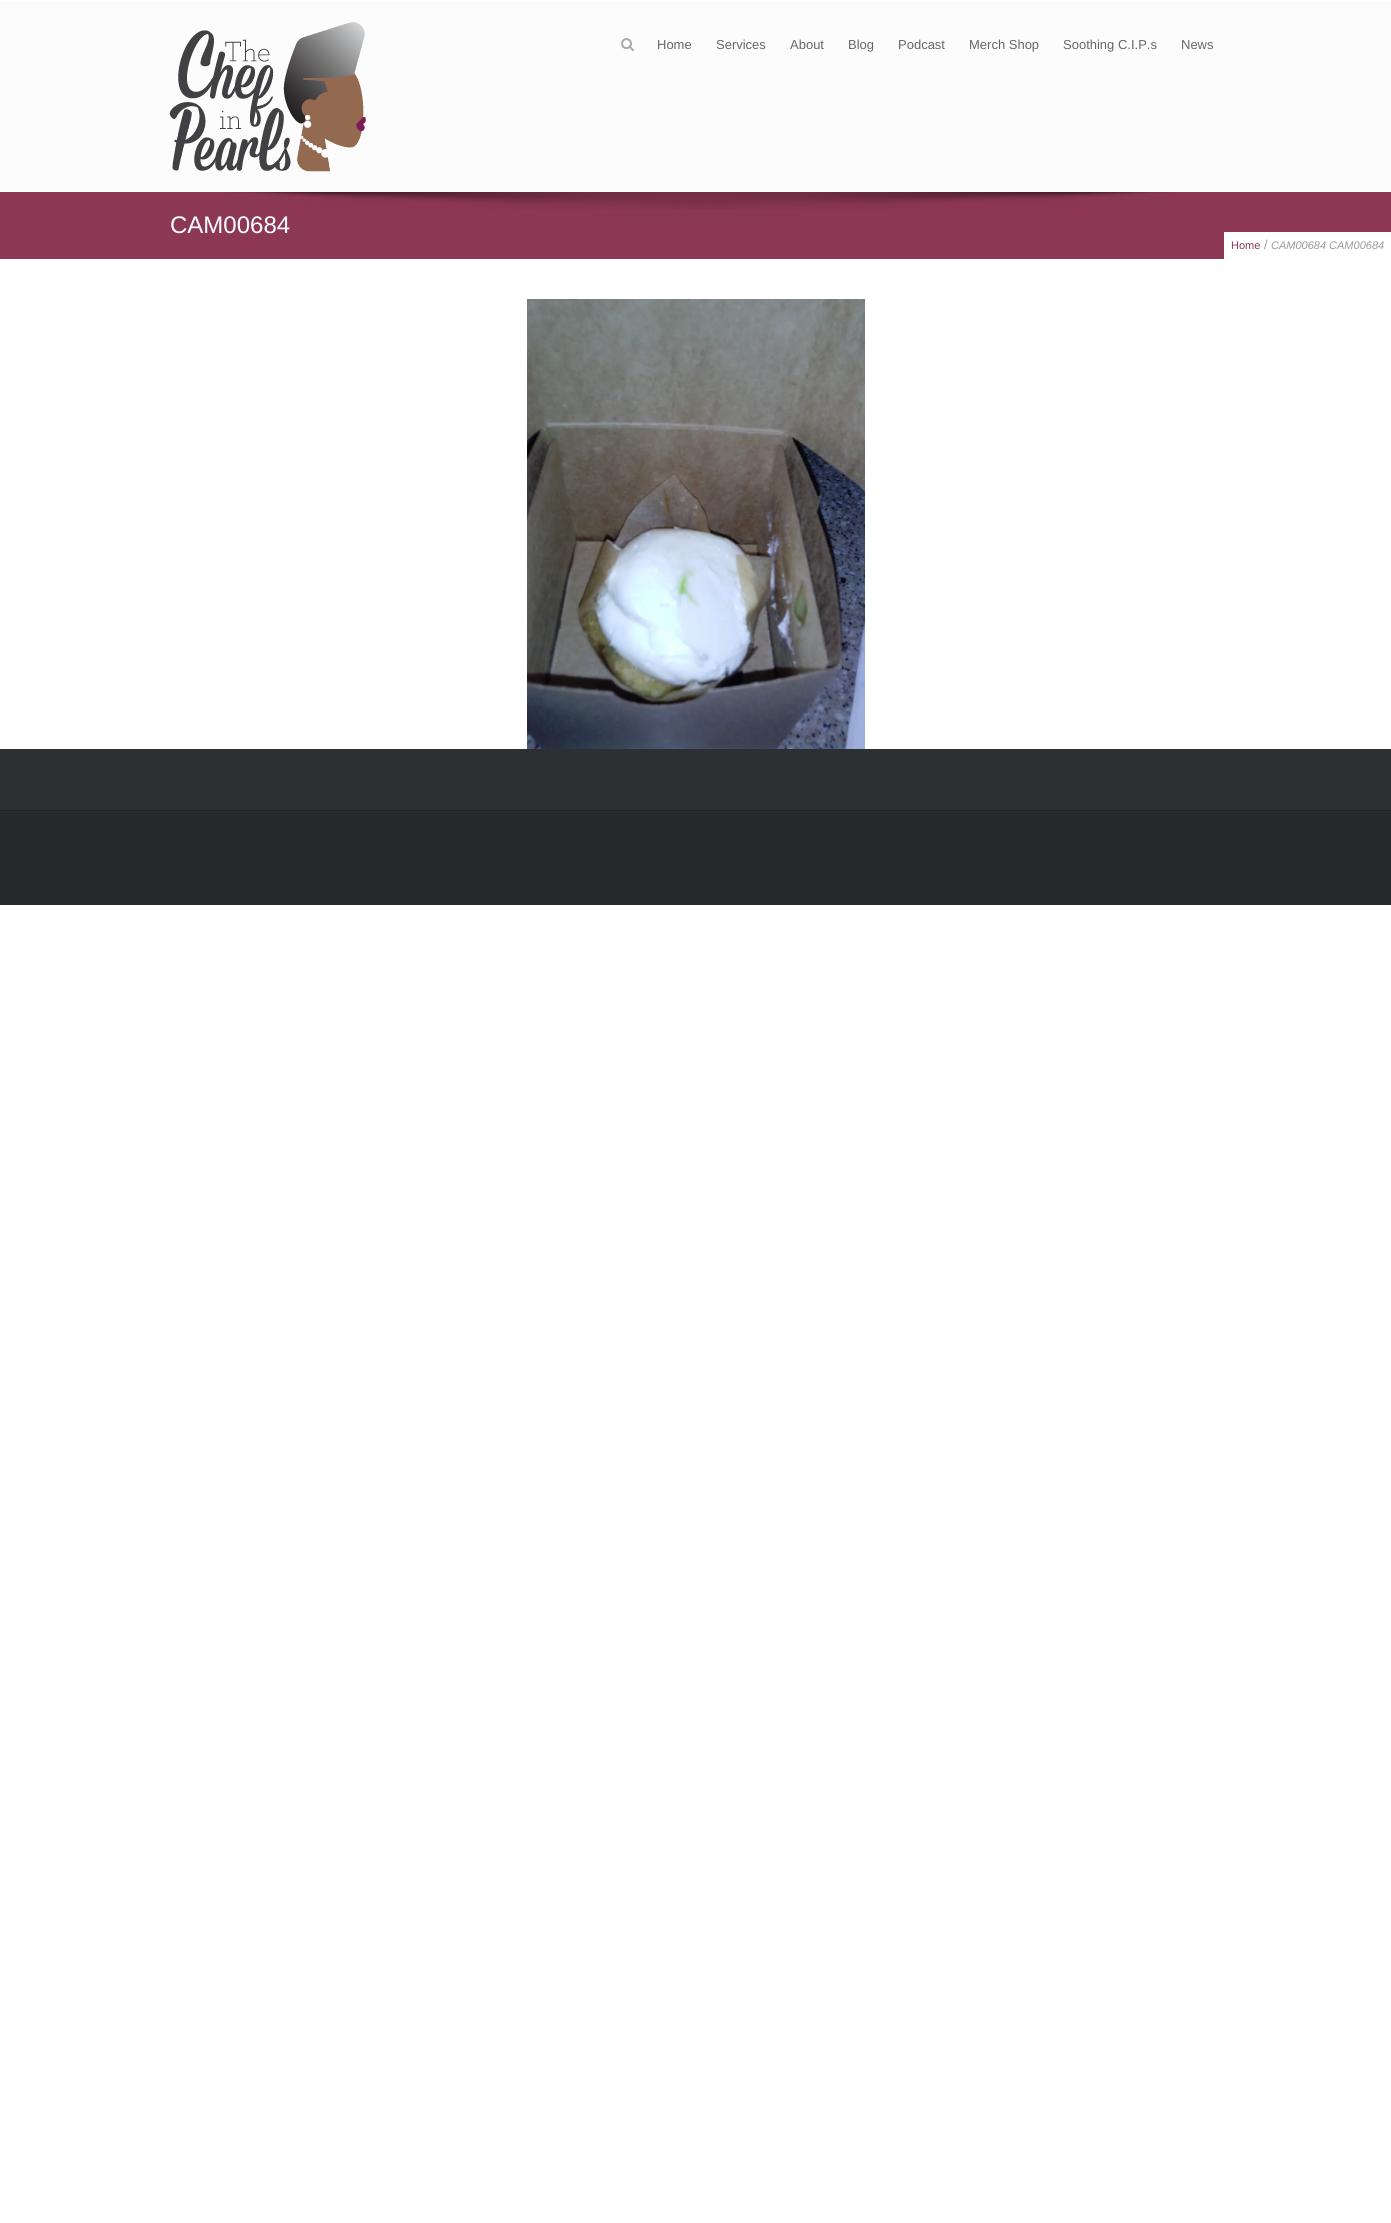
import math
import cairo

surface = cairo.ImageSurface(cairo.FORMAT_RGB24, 1391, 2223)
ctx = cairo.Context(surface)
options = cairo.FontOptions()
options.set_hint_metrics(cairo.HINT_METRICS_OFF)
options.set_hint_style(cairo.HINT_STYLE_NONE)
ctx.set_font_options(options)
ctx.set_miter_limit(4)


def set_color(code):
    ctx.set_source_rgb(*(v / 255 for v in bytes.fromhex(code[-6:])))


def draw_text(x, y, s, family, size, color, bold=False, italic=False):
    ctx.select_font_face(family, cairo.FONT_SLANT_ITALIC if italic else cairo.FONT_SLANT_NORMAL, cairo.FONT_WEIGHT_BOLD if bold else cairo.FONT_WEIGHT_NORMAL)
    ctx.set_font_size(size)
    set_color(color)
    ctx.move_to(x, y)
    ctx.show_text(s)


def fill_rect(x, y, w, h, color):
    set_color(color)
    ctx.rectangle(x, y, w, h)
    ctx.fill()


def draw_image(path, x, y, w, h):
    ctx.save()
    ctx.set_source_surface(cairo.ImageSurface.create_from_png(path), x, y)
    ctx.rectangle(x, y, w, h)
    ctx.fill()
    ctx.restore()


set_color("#ffffff")
ctx.paint()
fill_rect(0, 1, 1391, 191, "#fcfcfc")
draw_image("assets/img1.png", 169, 22, 197, 150)
draw_image("assets/img2.png", 621, 38, 13, 13)
draw_text(657, 49, "Home", "Liberation Sans", 13, "#666666")
draw_text(716, 49, "Services", "Liberation Sans", 13, "#666666")
draw_text(790, 49, "About", "Liberation Sans", 13, "#666666")
draw_text(848, 49, "Blog", "Liberation Sans", 13, "#666666")
draw_text(898, 49, "Podcast", "Liberation Sans", 13, "#666666")
draw_text(969, 49, "Merch Shop", "Liberation Sans", 13, "#666666")
draw_text(1063, 49, "Soothing C.I.P.s", "Liberation Sans", 13, "#666666")
draw_text(1181, 49, "News", "Liberation Sans", 13, "#666666")
fill_rect(0, 192, 1391, 67, "#8c3753")
draw_image("assets/img3.png", 223, 192, 955, 18)
draw_text(170, 233, "CAM00684", "Liberation Sans", 24, "#ffffff")
fill_rect(1224, 232, 167, 27, "#ffffff")
draw_text(1231, 249, "Home", "Liberation Sans", 11, "#8c3753")
draw_text(1264, 249, "/", "Liberation Sans", 13, "#999999")
draw_text(1271, 249, "CAM00684 CAM00684", "Liberation Sans", 11, "#999999", italic=True)
draw_image("assets/img4.png", 527, 299, 338, 450)
fill_rect(0, 749, 1391, 61, "#2d3033")
fill_rect(0, 810, 1391, 1, "#202325")
fill_rect(0, 811, 1391, 94, "#26292b")
surface.write_to_png("output.png")
